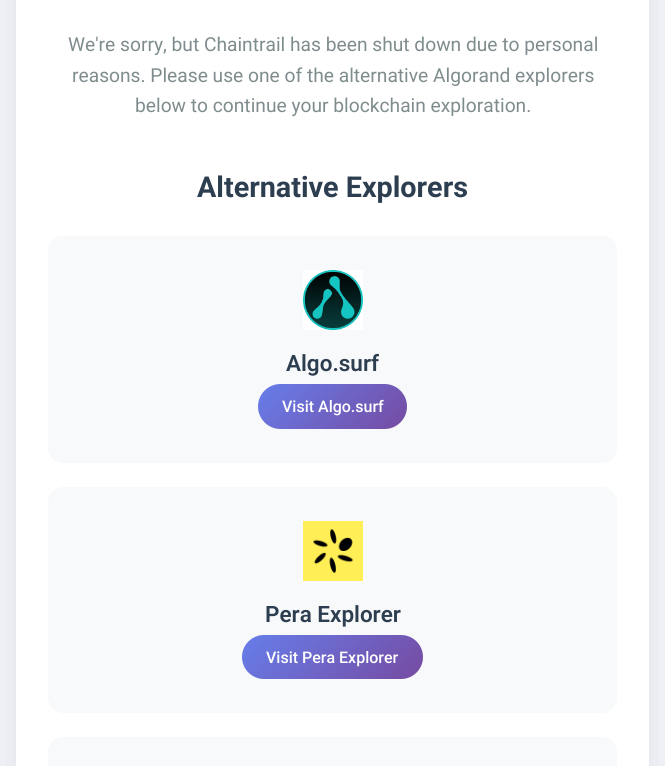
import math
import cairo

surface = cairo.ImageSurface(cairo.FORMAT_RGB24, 665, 766)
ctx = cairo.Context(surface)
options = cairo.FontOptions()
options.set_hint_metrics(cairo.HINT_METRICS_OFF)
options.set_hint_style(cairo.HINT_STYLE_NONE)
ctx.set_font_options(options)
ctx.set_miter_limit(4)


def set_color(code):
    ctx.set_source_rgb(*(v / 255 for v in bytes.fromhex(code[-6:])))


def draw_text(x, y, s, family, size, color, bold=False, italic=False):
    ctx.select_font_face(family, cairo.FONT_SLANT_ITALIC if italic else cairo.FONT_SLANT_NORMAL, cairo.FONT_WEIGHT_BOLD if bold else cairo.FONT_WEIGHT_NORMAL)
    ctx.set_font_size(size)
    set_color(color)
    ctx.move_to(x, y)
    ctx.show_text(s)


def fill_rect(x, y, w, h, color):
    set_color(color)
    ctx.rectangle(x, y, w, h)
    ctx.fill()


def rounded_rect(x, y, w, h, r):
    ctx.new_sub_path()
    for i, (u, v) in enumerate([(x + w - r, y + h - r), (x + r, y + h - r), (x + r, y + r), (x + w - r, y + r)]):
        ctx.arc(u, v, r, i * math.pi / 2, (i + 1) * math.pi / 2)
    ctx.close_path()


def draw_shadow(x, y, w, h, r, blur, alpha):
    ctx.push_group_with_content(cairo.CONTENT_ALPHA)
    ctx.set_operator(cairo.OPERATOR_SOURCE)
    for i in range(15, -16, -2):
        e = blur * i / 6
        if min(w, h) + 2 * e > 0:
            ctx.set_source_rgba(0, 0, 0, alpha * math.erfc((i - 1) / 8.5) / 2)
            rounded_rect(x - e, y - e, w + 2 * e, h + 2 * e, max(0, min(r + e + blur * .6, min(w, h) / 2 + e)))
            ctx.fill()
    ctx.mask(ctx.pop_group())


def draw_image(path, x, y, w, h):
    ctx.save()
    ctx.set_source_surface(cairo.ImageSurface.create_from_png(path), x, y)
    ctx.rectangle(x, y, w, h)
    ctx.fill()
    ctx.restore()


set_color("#f4f6fb")
ctx.paint()
set_color("#000000")
draw_shadow(16, -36, 633, 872, 10, 20, 0.1)
fill_rect(16, 0, 633, 766, "#ffffff")
draw_text(68, 51, "We're sorry, but Chaintrail has been shut down due to personal", "Roboto", 19.2, "#7f8c8d")
draw_text(72, 82, "reasons. Please use one of the alternative Algorand explorers", "Roboto", 19.2, "#7f8c8d")
draw_text(135, 112, "below to continue your blockchain exploration.", "Roboto", 19.2, "#7f8c8d")
draw_text(197, 197, "Alternative Explorers", "Roboto", 28.75, "#2c3e50", bold=True)
set_color("#f8f9fa")
rounded_rect(48, 236, 569, 227, 15)
ctx.fill()
draw_image("assets/img1.png", 303, 270, 60, 60)
draw_text(286, 371, "Algo.surf", "Roboto SemiBold", 22.5, "#2c3e50")
gradient = cairo.LinearGradient(284, 358, 381, 455)
gradient.add_color_stop_rgba(0, 0.4, 0.494, 0.918, 1)
gradient.add_color_stop_rgba(1, 0.463, 0.294, 0.635, 1)
ctx.set_source(gradient)
rounded_rect(258, 384, 149, 45, 22.5)
ctx.fill()
draw_text(282, 412, "Visit Algo.surf", "Roboto Medium", 16, "#ffffff")
set_color("#f8f9fa")
rounded_rect(48, 487, 569, 226, 15)
ctx.fill()
draw_image("assets/img2.png", 303, 521, 60, 60)
draw_text(265, 622, "Pera Explorer", "Roboto SemiBold", 22.5, "#2c3e50")
gradient = cairo.LinearGradient(276, 601, 389, 713)
gradient.add_color_stop_rgba(0, 0.4, 0.494, 0.918, 1)
gradient.add_color_stop_rgba(1, 0.463, 0.294, 0.635, 1)
ctx.set_source(gradient)
rounded_rect(242, 635, 181, 44, 22)
ctx.fill()
draw_text(266, 663, "Visit Pera Explorer", "Roboto Medium", 16, "#ffffff")
set_color("#f8f9fa")
rounded_rect(48, 737, 569, 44, 15)
ctx.fill()
surface.write_to_png("output.png")
